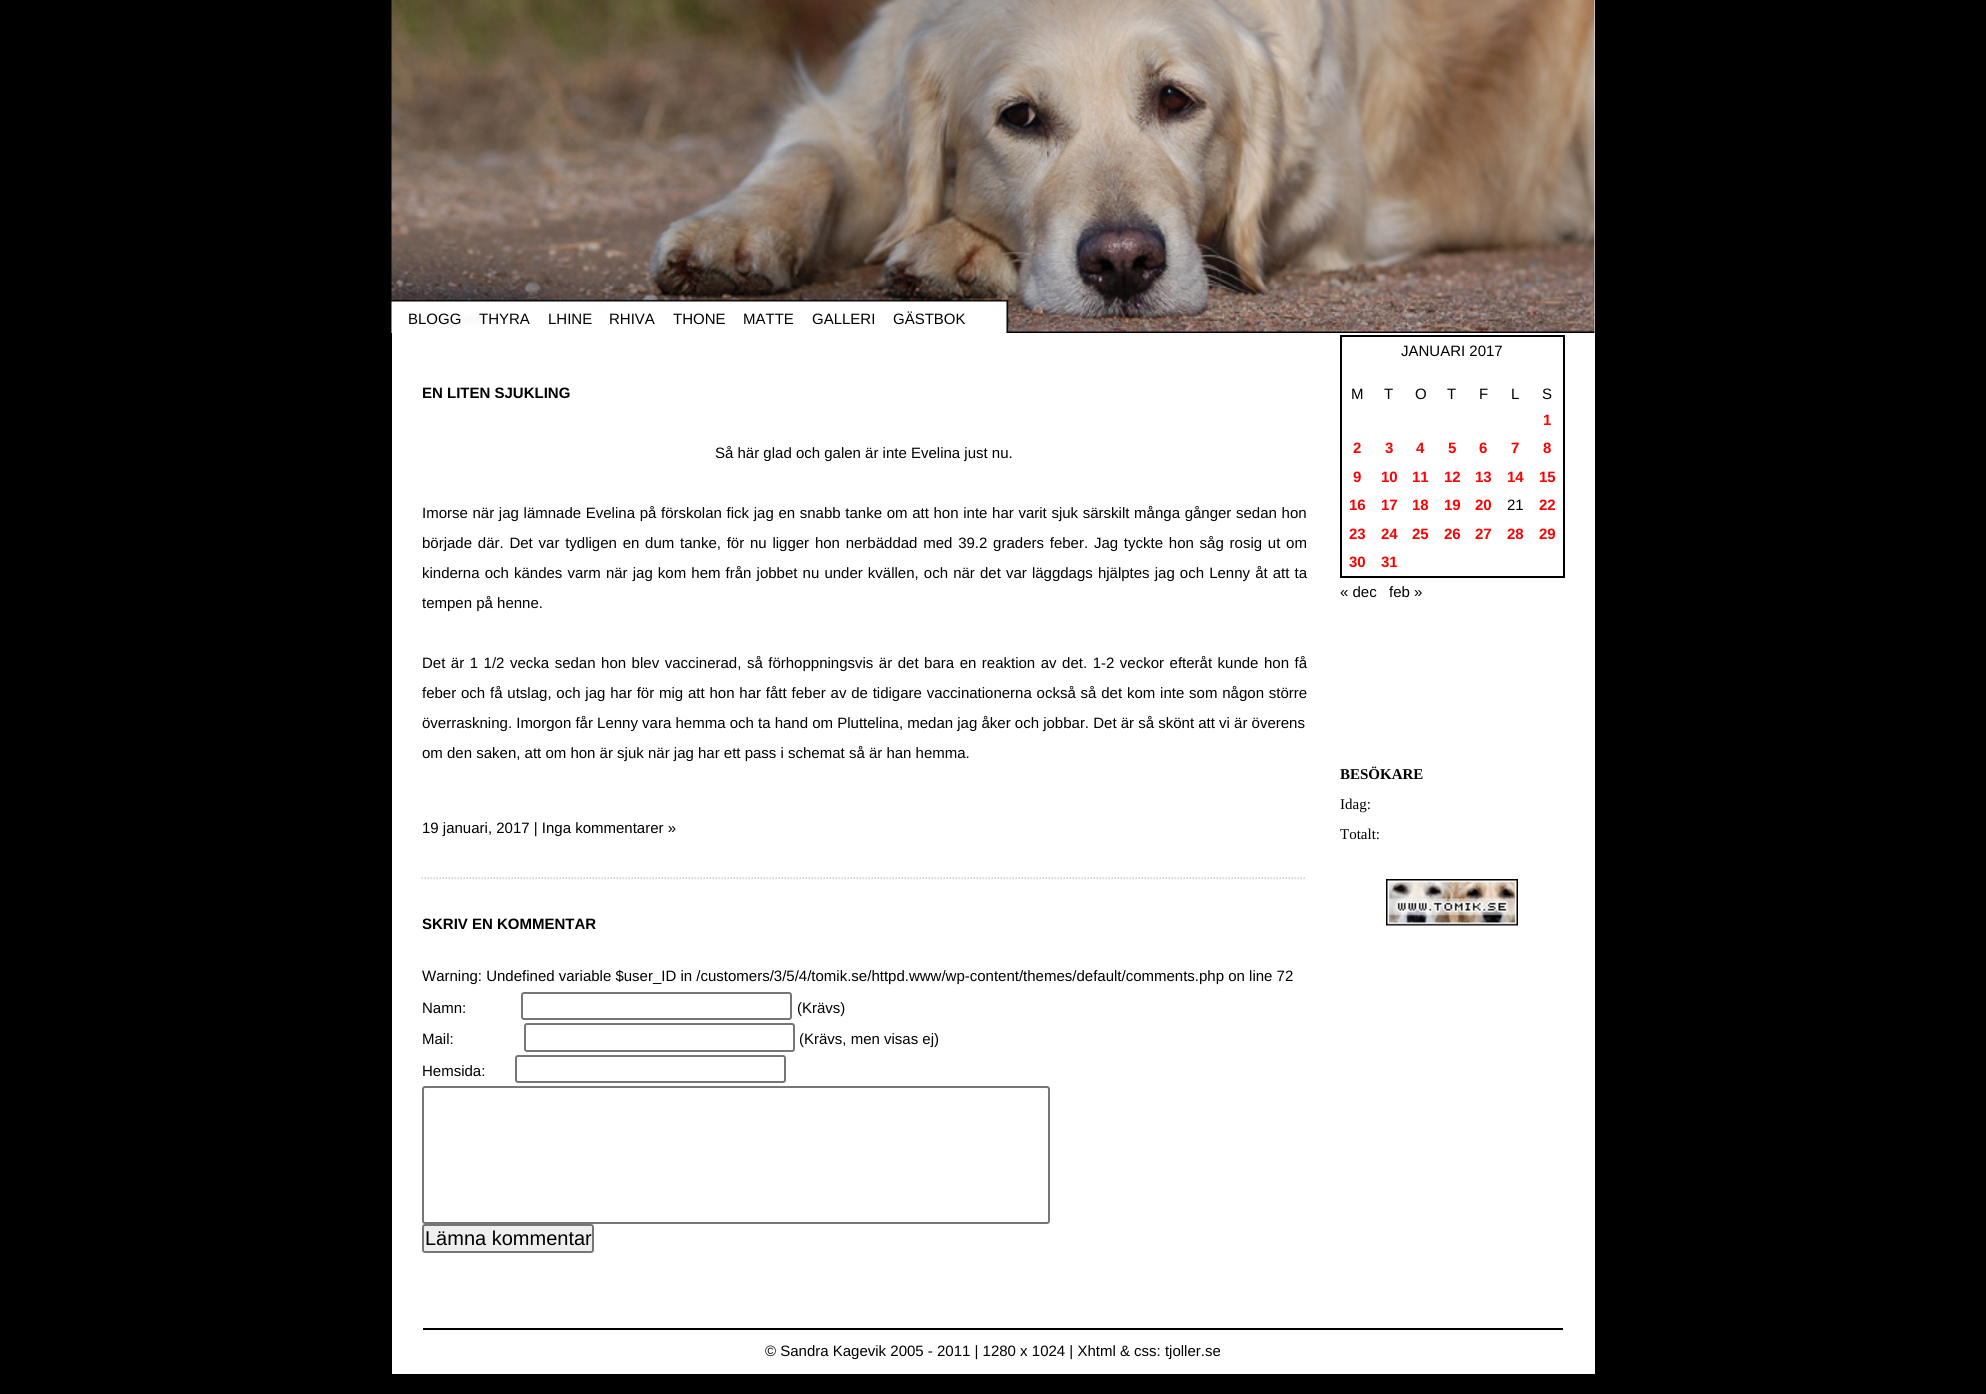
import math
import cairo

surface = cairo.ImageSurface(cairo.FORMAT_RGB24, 1986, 1394)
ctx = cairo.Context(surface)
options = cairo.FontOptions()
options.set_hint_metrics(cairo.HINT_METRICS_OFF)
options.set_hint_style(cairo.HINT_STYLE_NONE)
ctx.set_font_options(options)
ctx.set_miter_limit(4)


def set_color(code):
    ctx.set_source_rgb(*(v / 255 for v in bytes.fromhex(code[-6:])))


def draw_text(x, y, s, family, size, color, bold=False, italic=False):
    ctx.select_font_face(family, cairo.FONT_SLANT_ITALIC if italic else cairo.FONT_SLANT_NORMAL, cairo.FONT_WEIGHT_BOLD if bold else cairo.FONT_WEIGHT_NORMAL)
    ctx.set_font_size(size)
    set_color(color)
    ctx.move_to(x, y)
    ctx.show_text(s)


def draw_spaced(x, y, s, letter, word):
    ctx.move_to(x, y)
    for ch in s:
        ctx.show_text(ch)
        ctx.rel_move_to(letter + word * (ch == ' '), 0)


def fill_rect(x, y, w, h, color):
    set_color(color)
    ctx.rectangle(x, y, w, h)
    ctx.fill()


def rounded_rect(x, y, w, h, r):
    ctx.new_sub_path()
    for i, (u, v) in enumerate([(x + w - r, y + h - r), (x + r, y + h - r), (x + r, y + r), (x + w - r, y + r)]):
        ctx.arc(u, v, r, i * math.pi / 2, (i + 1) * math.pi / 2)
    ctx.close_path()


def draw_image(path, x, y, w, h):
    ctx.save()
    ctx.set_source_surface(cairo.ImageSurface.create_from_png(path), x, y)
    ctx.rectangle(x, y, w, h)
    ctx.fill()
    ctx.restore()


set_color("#000000")
ctx.paint()
fill_rect(392, 0, 1203, 1374, "#ffffff")
draw_image("assets/img1.png", 391, 0, 1204, 333)
draw_text(408, 324, "BLOGG", "Liberation Sans", 15, "#000000")
draw_text(479, 324, "THYRA", "Liberation Sans", 15, "#000000")
draw_text(548, 324, "LHINE", "Liberation Sans", 15, "#000000")
draw_text(609, 324, "RHIVA", "Liberation Sans", 15, "#000000")
draw_text(673, 324, "THONE", "Liberation Sans", 15, "#000000")
draw_text(743, 324, "MATTE", "Liberation Sans", 15, "#000000")
draw_text(812, 324, "GALLERI", "Liberation Sans", 15, "#000000")
draw_text(893, 324, "GÄSTBOK", "Liberation Sans", 15, "#000000")
draw_text(422, 398, "EN LITEN SJUKLING", "Liberation Sans", 15, "#000000", bold=True)
draw_text(715, 458, "Så här glad och galen är inte Evelina just nu.", "Liberation Sans", 15, "#000000")
draw_spaced(422, 518, "Imorse när jag lämnade Evelina på förskolan fick jag en snabb tanke om att hon inte har varit sjuk särskilt många gånger sedan hon", 0, 0.5)
draw_spaced(422, 548, "började där. Det var tydligen en dum tanke, för nu ligger hon nerbäddad med 39.2 graders feber. Jag tyckte hon såg rosig ut om", 0, 1.6)
draw_spaced(422, 578, "kinderna och kändes varm när jag kom hem från jobbet nu under kvällen, och när det var läggdags hjälptes jag och Lenny åt att ta", 0, 0.95)
draw_text(422, 608, "tempen på henne.", "Liberation Sans", 15, "#000000")
draw_spaced(422, 668, "Det är 1 1/2 vecka sedan hon blev vaccinerad, så förhoppningsvis är det bara en reaktion av det. 1-2 veckor efteråt kunde hon få", 0, 1.35)
draw_spaced(422, 698, "feber och få utslag, och jag har för mig att hon har fått feber av de tidigare vaccinationerna också så det kom inte som någon större", 0, 0.65)
draw_text(422, 728, "överraskning. Imorgon får Lenny vara hemma och ta hand om Pluttelina, medan jag åker och jobbar. Det är så skönt att vi är överens", "Liberation Sans", 15, "#000000")
draw_text(422, 758, "om den saken, att om hon är sjuk när jag har ett pass i schemat så är han hemma.", "Liberation Sans", 15, "#000000")
ctx.new_path()
ctx.move_to(421.5, 878)
ctx.line_to(1306.5, 878)
set_color("#cccccc")
ctx.set_line_width(1.5)
ctx.set_dash([1.5, 1.5])
ctx.stroke()
draw_text(422, 833, "19 januari, 2017 | Inga kommentarer »", "Liberation Sans", 15, "#000000")
draw_text(422, 929, "SKRIV EN KOMMENTAR", "Liberation Sans", 15, "#000000", bold=True)
draw_text(422, 981, "Warning: Undefined variable $user_ID in /customers/3/5/4/tomik.se/httpd.www/wp-content/themes/default/comments.php on line 72", "Liberation Sans", 15, "#000000")
draw_text(422, 1013, "Namn:", "Liberation Sans", 15, "#000000")
rounded_rect(522, 993, 269, 26, 2)
set_color("#767676")
ctx.set_line_width(2)
ctx.set_dash([])
ctx.stroke()
draw_text(797, 1013, "(Krävs)", "Liberation Sans", 15, "#000000")
draw_text(422, 1044, "Mail:", "Liberation Sans", 15, "#000000")
rounded_rect(525, 1024, 269, 27, 2)
set_color("#767676")
ctx.stroke()
draw_text(799, 1044, "(Krävs, men visas ej)", "Liberation Sans", 15, "#000000")
draw_text(422, 1076, "Hemsida:", "Liberation Sans", 15, "#000000")
rounded_rect(516, 1056, 269, 26, 2)
set_color("#767676")
ctx.stroke()
rounded_rect(423, 1087, 626, 136, 2)
ctx.stroke()
set_color("#efefef")
rounded_rect(423, 1225, 170, 27, 2)
ctx.fill_preserve()
set_color("#767676")
ctx.stroke()
draw_text(425, 1245, "Lämna kommentar", "Liberation Sans", 20, "#000000")
fill_rect(1340, 335, 225, 2, "#000000")
fill_rect(1563, 335, 2, 243, "#000000")
fill_rect(1340, 576, 225, 2, "#000000")
fill_rect(1340, 335, 2, 243, "#000000")
draw_text(1401, 356, "JANUARI 2017", "Liberation Sans", 15, "#000000")
draw_text(1351, 399, "M", "Liberation Sans", 15, "#000000")
draw_text(1384, 399, "T", "Liberation Sans", 15, "#000000")
draw_text(1415, 399, "O", "Liberation Sans", 15, "#000000")
draw_text(1447, 399, "T", "Liberation Sans", 15, "#000000")
draw_text(1479, 399, "F", "Liberation Sans", 15, "#000000")
draw_text(1511, 399, "L", "Liberation Sans", 15, "#000000")
draw_text(1542, 399, "S", "Liberation Sans", 15, "#000000")
draw_text(1543, 425, "1", "Liberation Sans", 15, "#ff0000", bold=True)
draw_text(1353, 453, "2", "Liberation Sans", 15, "#ff0000", bold=True)
draw_text(1385, 453, "3", "Liberation Sans", 15, "#ff0000", bold=True)
draw_text(1416, 453, "4", "Liberation Sans", 15, "#ff0000", bold=True)
draw_text(1448, 453, "5", "Liberation Sans", 15, "#ff0000", bold=True)
draw_text(1479, 453, "6", "Liberation Sans", 15, "#ff0000", bold=True)
draw_text(1511, 453, "7", "Liberation Sans", 15, "#ff0000", bold=True)
draw_text(1543, 453, "8", "Liberation Sans", 15, "#ff0000", bold=True)
draw_text(1353, 482, "9", "Liberation Sans", 15, "#ff0000", bold=True)
draw_text(1381, 482, "10", "Liberation Sans", 15, "#ff0000", bold=True)
draw_text(1412, 482, "11", "Liberation Sans", 15, "#ff0000", bold=True)
draw_text(1444, 482, "12", "Liberation Sans", 15, "#ff0000", bold=True)
draw_text(1475, 482, "13", "Liberation Sans", 15, "#ff0000", bold=True)
draw_text(1507, 482, "14", "Liberation Sans", 15, "#ff0000", bold=True)
draw_text(1539, 482, "15", "Liberation Sans", 15, "#ff0000", bold=True)
draw_text(1349, 510, "16", "Liberation Sans", 15, "#ff0000", bold=True)
draw_text(1381, 510, "17", "Liberation Sans", 15, "#ff0000", bold=True)
draw_text(1412, 510, "18", "Liberation Sans", 15, "#ff0000", bold=True)
draw_text(1444, 510, "19", "Liberation Sans", 15, "#ff0000", bold=True)
draw_text(1475, 510, "20", "Liberation Sans", 15, "#ff0000", bold=True)
draw_text(1507, 510, "21", "Liberation Sans", 15, "#000000")
draw_text(1539, 510, "22", "Liberation Sans", 15, "#ff0000", bold=True)
draw_text(1349, 539, "23", "Liberation Sans", 15, "#ff0000", bold=True)
draw_text(1381, 539, "24", "Liberation Sans", 15, "#ff0000", bold=True)
draw_text(1412, 539, "25", "Liberation Sans", 15, "#ff0000", bold=True)
draw_text(1444, 539, "26", "Liberation Sans", 15, "#ff0000", bold=True)
draw_text(1475, 539, "27", "Liberation Sans", 15, "#ff0000", bold=True)
draw_text(1507, 539, "28", "Liberation Sans", 15, "#ff0000", bold=True)
draw_text(1539, 539, "29", "Liberation Sans", 15, "#ff0000", bold=True)
draw_text(1349, 567, "30", "Liberation Sans", 15, "#ff0000", bold=True)
draw_text(1381, 567, "31", "Liberation Sans", 15, "#ff0000", bold=True)
draw_text(1340, 597, "« dec", "Liberation Sans", 15, "#000000")
draw_text(1389, 597, "feb »", "Liberation Sans", 15, "#000000")
draw_text(1340, 779, "BESÖKARE", "Liberation Serif", 15, "#000000", bold=True)
draw_text(1340, 809, "Idag:", "Liberation Serif", 15, "#000000")
draw_text(1340, 839, "Totalt:", "Liberation Serif", 15, "#000000")
draw_image("assets/img2.png", 1386, 879, 132, 47)
fill_rect(423, 1328, 1140, 2, "#000000")
draw_text(765, 1356, "© Sandra Kagevik 2005 - 2011 | 1280 x 1024 | Xhtml & css: tjoller.se", "Liberation Sans", 15, "#000000")
surface.write_to_png("output.png")
